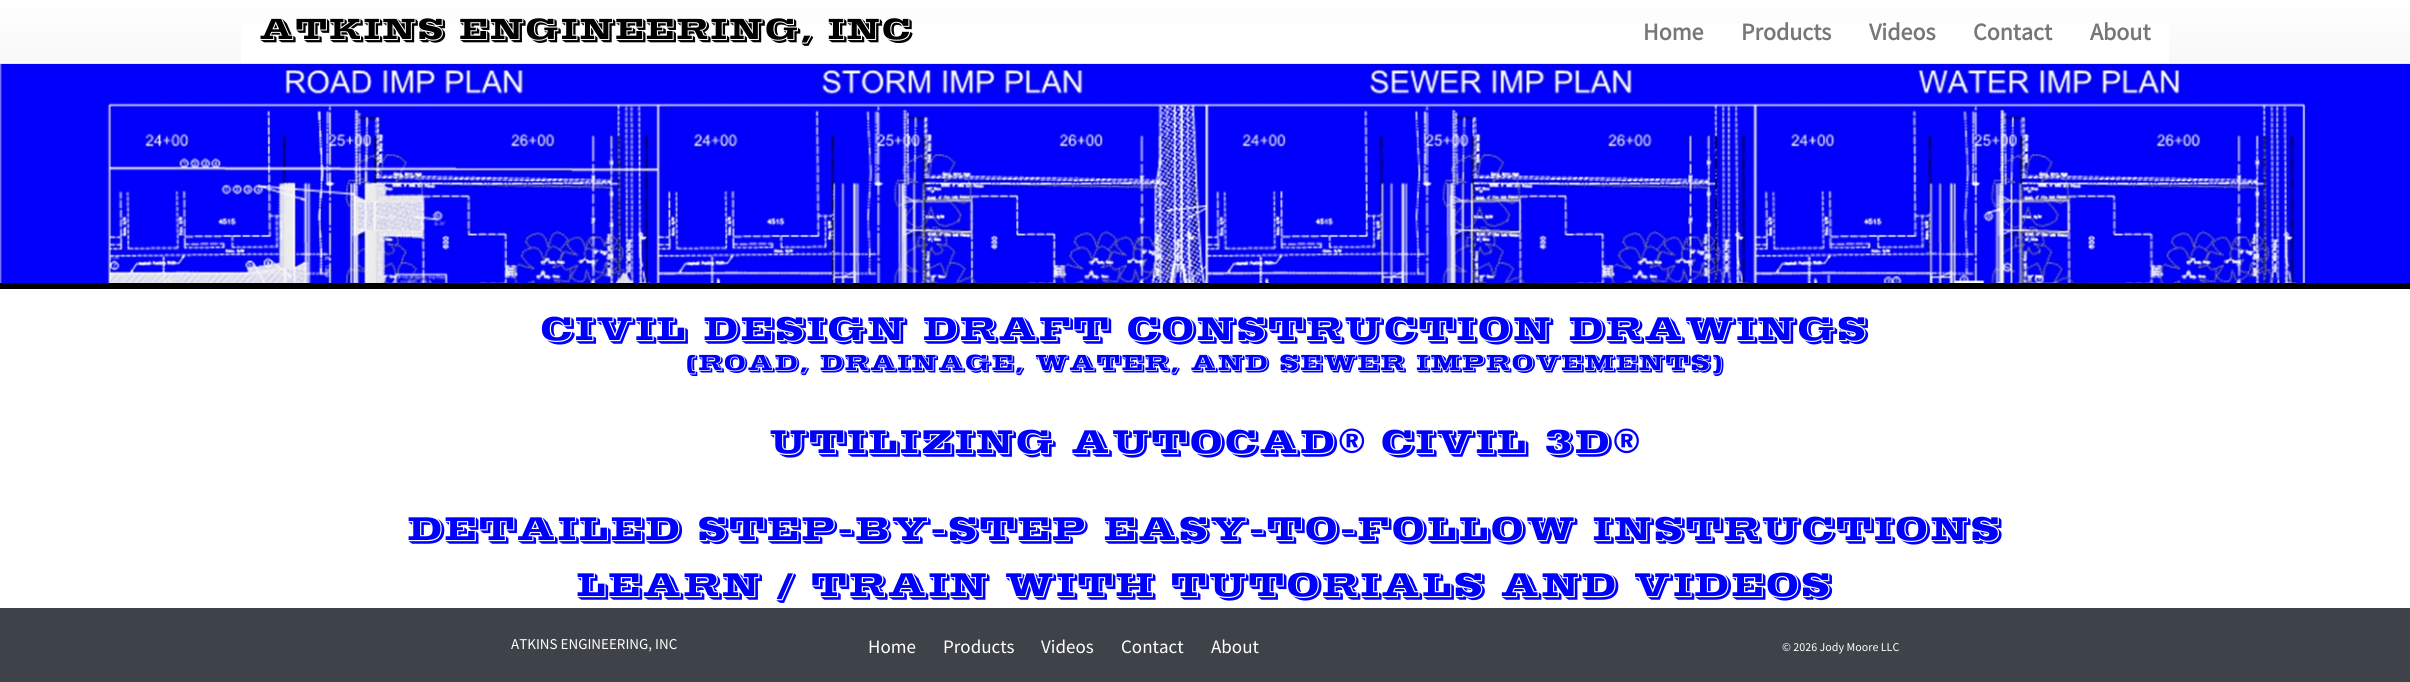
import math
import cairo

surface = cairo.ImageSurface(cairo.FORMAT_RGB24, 2410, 682)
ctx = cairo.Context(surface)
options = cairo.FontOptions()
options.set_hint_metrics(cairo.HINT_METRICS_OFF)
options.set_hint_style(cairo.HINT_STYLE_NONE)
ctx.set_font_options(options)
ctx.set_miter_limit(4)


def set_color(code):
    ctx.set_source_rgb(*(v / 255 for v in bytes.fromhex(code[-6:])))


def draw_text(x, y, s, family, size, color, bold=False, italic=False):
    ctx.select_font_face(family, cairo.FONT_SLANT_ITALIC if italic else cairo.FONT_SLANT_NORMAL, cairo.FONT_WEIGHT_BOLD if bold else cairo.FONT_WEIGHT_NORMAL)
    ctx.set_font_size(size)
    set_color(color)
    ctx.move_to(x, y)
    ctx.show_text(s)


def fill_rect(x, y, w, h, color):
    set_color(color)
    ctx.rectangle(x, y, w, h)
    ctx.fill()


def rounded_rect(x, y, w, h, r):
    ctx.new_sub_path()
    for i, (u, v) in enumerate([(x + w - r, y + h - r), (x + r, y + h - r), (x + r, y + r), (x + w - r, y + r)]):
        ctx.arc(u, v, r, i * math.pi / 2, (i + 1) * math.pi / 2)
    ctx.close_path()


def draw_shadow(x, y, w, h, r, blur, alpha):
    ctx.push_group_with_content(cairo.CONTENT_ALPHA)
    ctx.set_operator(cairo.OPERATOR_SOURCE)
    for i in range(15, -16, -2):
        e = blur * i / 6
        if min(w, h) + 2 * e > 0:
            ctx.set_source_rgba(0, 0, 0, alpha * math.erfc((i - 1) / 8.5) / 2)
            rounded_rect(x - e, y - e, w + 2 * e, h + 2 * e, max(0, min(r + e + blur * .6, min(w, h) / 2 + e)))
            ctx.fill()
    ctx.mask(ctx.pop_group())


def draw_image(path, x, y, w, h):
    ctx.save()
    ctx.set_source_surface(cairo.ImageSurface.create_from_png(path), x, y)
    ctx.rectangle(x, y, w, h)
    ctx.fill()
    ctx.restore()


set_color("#ffffff")
ctx.paint()
draw_image("assets/img1.png", 0, 64, 2410, 219)
set_color("#000000")
draw_shadow(0, 1, 2410, 64, 0, 3, 0.07)
gradient = cairo.LinearGradient(1205, 0, 1205, 63)
gradient.add_color_stop_rgba(0, 1, 1, 1, 1)
gradient.add_color_stop_rgba(1, 0.973, 0.973, 0.973, 1)
ctx.set_source(gradient)
ctx.rectangle(0, 0, 2410, 63)
ctx.fill()
fill_rect(0, 63, 2410, 1, "#e7e7e7")
fill_rect(241, 23, 1928, 40, "#ffffff")
draw_text(260, 39, "ATKINS ENGINEERING, INC", "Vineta", 30, "#000000")
draw_text(1643, 40, "Home", "Source Sans Pro", 24, "#777777", bold=True)
draw_text(1741, 40, "Products", "Source Sans Pro", 24, "#777777", bold=True)
draw_text(1869, 40, "Videos", "Source Sans Pro", 24, "#777777", bold=True)
draw_text(1973, 40, "Contact", "Source Sans Pro", 24, "#777777", bold=True)
draw_text(2090, 40, "About", "Source Sans Pro", 24, "#777777", bold=True)
fill_rect(0, 283, 2410, 6, "#000000")
draw_text(541, 340, "CIVIL DESIGN DRAFT CONSTRUCTION DRAWINGS", "Vineta", 33.8, "#0000ff")
draw_text(686, 370, "(ROAD, DRAINAGE, WATER, AND SEWER IMPROVEMENTS)", "Vineta", 22.5, "#0000ff")
draw_text(770, 453, "UTILIZING AUTOCAD® CIVIL 3D®", "Vineta", 33.8, "#0000ff")
draw_text(408, 540, "DETAILED STEP-BY-STEP EASY-TO-FOLLOW INSTRUCTIONS", "Vineta", 33.8, "#0000ff")
draw_text(577, 596, "LEARN / TRAIN WITH TUTORIALS AND VIDEOS", "Vineta", 33.8, "#0000ff")
fill_rect(0, 608, 2410, 74, "#3e4249")
draw_text(511, 649, "ATKINS ENGINEERING, INC", "Source Sans Pro", 15, "#ffffff")
draw_text(868, 653, "Home", "Source Sans Pro", 19, "#ffffff")
draw_text(943, 653, "Products", "Source Sans Pro", 19, "#ffffff")
draw_text(1041, 653, "Videos", "Source Sans Pro", 19, "#ffffff")
draw_text(1121, 653, "Contact", "Source Sans Pro", 19, "#ffffff")
draw_text(1211, 653, "About", "Source Sans Pro", 19, "#ffffff")
draw_text(1782, 651, "© 2026 Jody Moore LLC", "Source Sans Pro", 12, "#ffffff")
surface.write_to_png("output.png")
